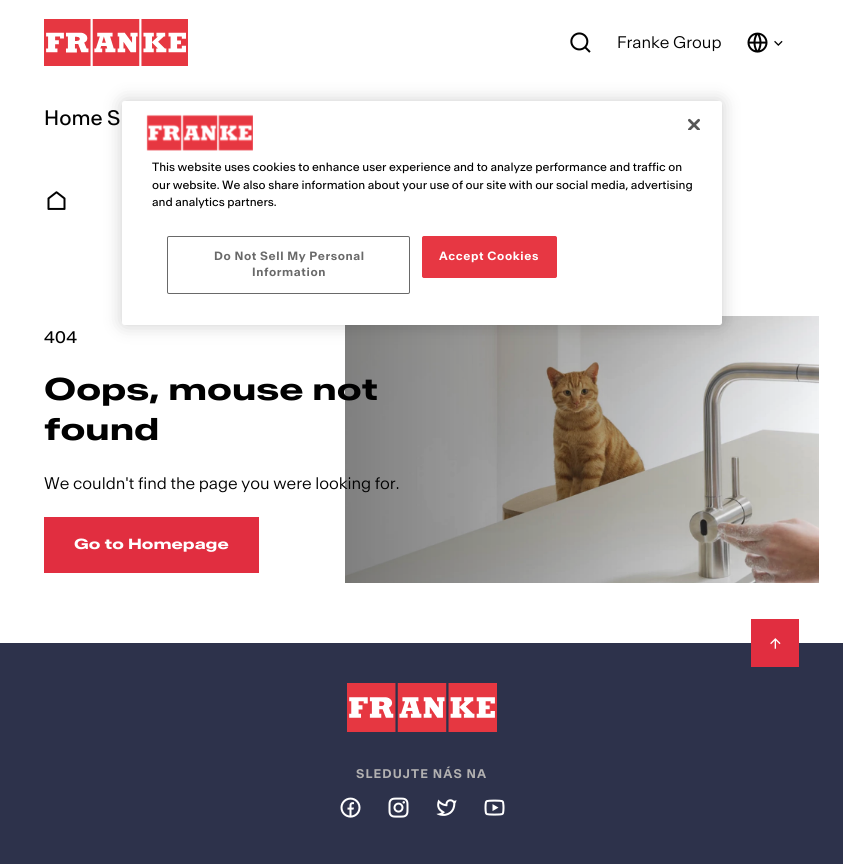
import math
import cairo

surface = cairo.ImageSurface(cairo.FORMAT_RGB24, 843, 864)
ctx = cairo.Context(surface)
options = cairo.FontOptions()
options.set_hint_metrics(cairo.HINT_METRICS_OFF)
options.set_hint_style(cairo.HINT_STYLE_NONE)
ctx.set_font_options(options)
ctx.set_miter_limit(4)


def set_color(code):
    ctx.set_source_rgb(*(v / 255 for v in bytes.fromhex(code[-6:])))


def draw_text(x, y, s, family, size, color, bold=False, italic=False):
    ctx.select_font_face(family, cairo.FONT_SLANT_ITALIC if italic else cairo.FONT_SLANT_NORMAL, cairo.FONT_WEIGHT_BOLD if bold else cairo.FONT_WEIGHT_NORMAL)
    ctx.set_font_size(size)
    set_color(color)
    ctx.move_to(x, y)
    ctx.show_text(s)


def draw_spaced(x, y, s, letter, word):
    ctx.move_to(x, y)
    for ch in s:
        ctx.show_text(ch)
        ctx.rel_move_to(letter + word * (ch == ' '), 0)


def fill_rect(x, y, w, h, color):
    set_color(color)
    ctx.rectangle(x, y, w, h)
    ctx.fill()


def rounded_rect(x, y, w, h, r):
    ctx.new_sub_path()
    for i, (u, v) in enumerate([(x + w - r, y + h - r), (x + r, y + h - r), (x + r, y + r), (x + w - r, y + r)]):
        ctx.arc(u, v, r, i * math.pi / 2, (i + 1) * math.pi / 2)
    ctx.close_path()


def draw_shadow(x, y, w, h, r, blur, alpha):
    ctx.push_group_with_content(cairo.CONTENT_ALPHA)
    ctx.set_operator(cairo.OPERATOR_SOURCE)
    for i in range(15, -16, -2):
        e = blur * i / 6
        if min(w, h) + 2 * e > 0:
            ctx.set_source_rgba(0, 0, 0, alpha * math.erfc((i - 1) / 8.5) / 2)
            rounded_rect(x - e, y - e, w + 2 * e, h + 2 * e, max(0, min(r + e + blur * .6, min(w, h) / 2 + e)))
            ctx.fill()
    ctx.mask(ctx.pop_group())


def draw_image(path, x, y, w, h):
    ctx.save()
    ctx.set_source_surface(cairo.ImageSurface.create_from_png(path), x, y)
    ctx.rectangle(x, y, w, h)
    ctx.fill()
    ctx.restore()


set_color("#ffffff")
ctx.paint()
draw_image("assets/img1.png", 44, 19, 144, 47)
draw_image("assets/img2.png", 570, 32, 21, 21)
draw_text(617, 48, "Franke Group", "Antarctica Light", 16, "#010101")
draw_image("assets/img3.png", 747, 32, 21, 21)
draw_image("assets/img4.png", 774, 40, 9, 6)
draw_text(44, 125, "Home S", "Antarctica", 20, "#010101")
draw_image("assets/img5.png", 47, 191, 19, 19)
draw_text(44, 343, "404", "Antarctica", 16, "#010101")
draw_image("assets/img6.png", 345, 316, 474, 267)
draw_text(44, 400, "Oops, mouse not", "Antarctica", 30, "#010101", bold=True)
draw_text(44, 440, "found", "Antarctica", 30, "#010101", bold=True)
draw_text(44, 489, "We couldn't find the page you were looking for.", "Antarctica Light", 16, "#010101")
fill_rect(44, 517, 215, 56, "#e12e40")
draw_text(74, 549, "Go to Homepage", "Antarctica", 14, "#ffffff", bold=True)
fill_rect(0, 643, 843, 221, "#2d324b")
fill_rect(751, 619, 48, 48, "#e12e40")
draw_image("assets/img7.png", 770, 638, 11, 11)
draw_image("assets/img8.png", 347, 683, 150, 49)
ctx.select_font_face("Antarctica SemiBold")
ctx.set_font_size(12)
set_color("#b2b1b1")
draw_spaced(356, 778, "SLEDUJTE NÁS NA", 1.1, 0)
draw_image("assets/img9.png", 340, 797, 21, 21)
draw_image("assets/img10.png", 388, 797, 21, 21)
draw_image("assets/img11.png", 436, 799, 21, 17)
draw_image("assets/img12.png", 484, 799, 21, 17)
set_color("#000000")
draw_shadow(122, 101, 600, 224, 2.5, 9, 0.2)
set_color("#ffffff")
rounded_rect(122, 101, 600, 224, 2.5)
ctx.fill()
draw_image("assets/img13.png", 688, 118, 12, 12)
draw_image("assets/img14.png", 146, 114, 107, 37)
draw_text(152, 171, "This website uses cookies to enhance user experience and to analyze performance and traffic on", "Antarctica", 11.4, "#010101")
draw_text(152, 189, "our website. We also share information about your use of our site with our social media, advertising", "Antarctica", 11.4, "#010101")
draw_text(152, 206, "and analytics partners.", "Antarctica", 11.4, "#010101")
rounded_rect(167.5, 236.5, 242, 57, 1.5)
set_color("#696969")
ctx.set_line_width(1)
ctx.stroke()
ctx.select_font_face("Antarctica SemiBold")
draw_spaced(214, 260, "Do Not Sell My Personal", 0.6, 0)
draw_spaced(252, 276, "Information", 0.6, 0)
set_color("#e73743")
rounded_rect(422.5, 236.5, 134, 41, 1.5)
ctx.fill_preserve()
ctx.stroke()
set_color("#ffffff")
draw_spaced(439, 260, "Accept Cookies", 0.6, 0)
surface.write_to_png("output.png")
